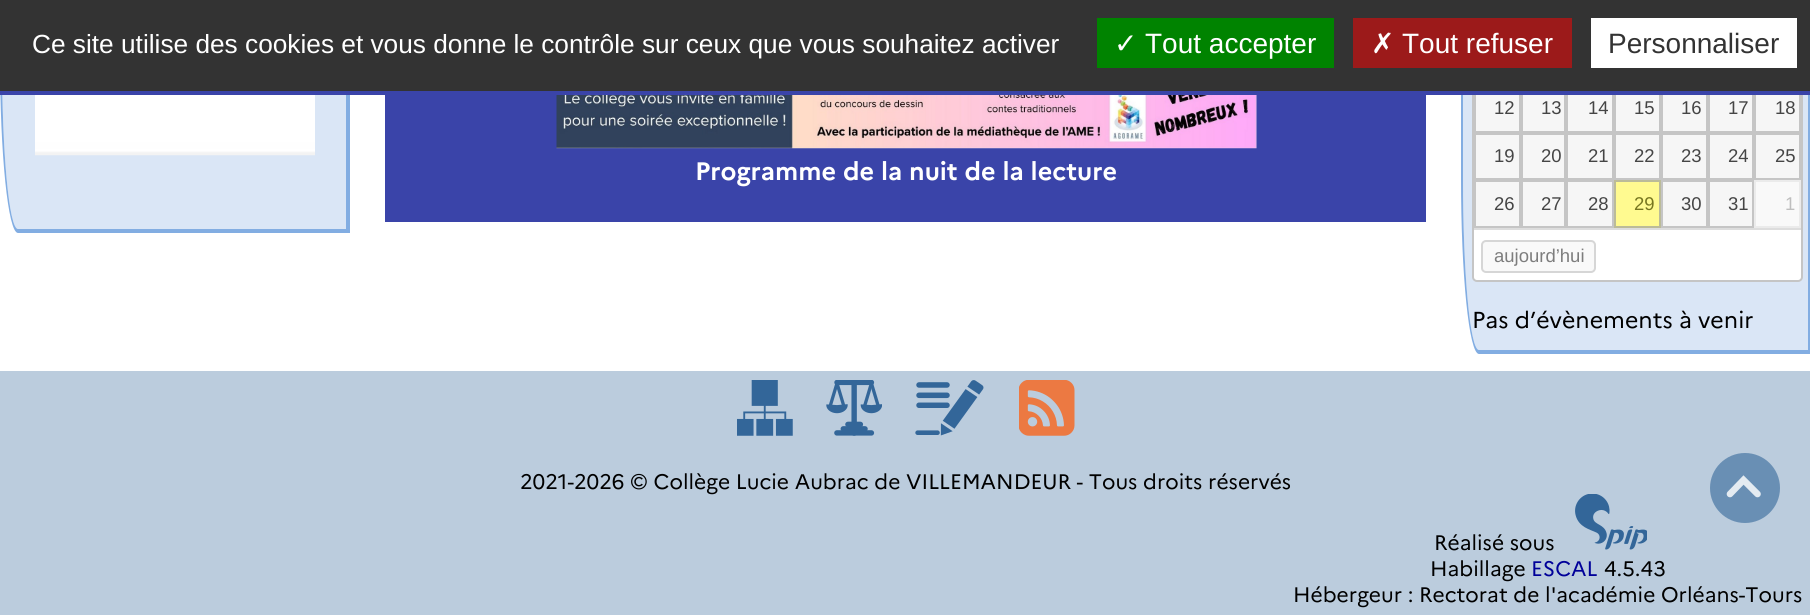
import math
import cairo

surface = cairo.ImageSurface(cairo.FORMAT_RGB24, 1810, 615)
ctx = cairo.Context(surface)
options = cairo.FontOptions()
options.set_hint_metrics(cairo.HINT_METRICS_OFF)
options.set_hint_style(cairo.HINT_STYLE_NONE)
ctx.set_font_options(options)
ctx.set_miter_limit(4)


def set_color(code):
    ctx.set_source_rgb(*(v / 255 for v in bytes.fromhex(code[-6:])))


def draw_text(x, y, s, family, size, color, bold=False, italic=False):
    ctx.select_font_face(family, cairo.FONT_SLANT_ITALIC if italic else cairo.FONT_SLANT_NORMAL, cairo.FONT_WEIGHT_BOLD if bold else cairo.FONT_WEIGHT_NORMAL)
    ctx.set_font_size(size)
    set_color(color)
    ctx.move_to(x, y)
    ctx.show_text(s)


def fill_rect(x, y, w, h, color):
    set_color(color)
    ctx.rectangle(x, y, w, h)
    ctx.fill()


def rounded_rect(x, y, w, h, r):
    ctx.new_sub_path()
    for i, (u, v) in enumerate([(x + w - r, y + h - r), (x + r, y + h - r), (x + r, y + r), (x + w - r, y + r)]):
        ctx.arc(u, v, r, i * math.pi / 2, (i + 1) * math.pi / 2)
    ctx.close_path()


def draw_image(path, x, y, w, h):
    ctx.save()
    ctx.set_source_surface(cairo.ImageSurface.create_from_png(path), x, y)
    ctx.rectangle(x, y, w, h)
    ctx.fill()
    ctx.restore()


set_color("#ffffff")
ctx.paint()
set_color("#dae6f6")
ctx.new_path()
ctx.move_to(2, -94)
ctx.line_to(346, -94)
ctx.line_to(346, 229)
ctx.line_to(18, 229)
ctx.curve_to(9, 229, 2, 152, 2, 58)
ctx.close_path()
ctx.fill()
set_color("#82ade2")
ctx.set_fill_rule(cairo.FILL_RULE_EVEN_ODD)
ctx.new_path()
ctx.move_to(0, -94)
ctx.line_to(350, -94)
ctx.line_to(350, 233)
ctx.line_to(18, 233)
ctx.curve_to(8, 233, 0, 154, 0, 58)
ctx.close_path()
ctx.move_to(2, -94)
ctx.line_to(346, -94)
ctx.line_to(346, 229)
ctx.line_to(18, 229)
ctx.curve_to(9, 229, 2, 152, 2, 58)
ctx.close_path()
ctx.fill()
set_color("#dae6f6")
ctx.set_fill_rule(cairo.FILL_RULE_WINDING)
ctx.new_path()
ctx.move_to(1463, -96)
ctx.line_to(1808, -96)
ctx.line_to(1808, 350)
ctx.line_to(1479, 350)
ctx.curve_to(1470, 350, 1463, 273, 1463, 178)
ctx.close_path()
ctx.fill()
set_color("#82ade2")
ctx.set_fill_rule(cairo.FILL_RULE_EVEN_ODD)
ctx.new_path()
ctx.move_to(1461, -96)
ctx.line_to(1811, -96)
ctx.line_to(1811, 354)
ctx.line_to(1479, 354)
ctx.curve_to(1469, 354, 1461, 275, 1461, 178)
ctx.close_path()
ctx.move_to(1463, -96)
ctx.line_to(1808, -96)
ctx.line_to(1808, 350)
ctx.line_to(1479, 350)
ctx.curve_to(1470, 350, 1463, 273, 1463, 178)
ctx.close_path()
ctx.fill()
set_color("#ffffff")
rounded_rect(1473, -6, 329, 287, 4)
ctx.fill_preserve()
set_color("#c5c5c5")
ctx.stroke()
fill_rect(1476, 95, 43, 36, "#f6f6f6")
ctx.rectangle(1475, 85, 45, 47)
set_color("#c5c5c5")
ctx.stroke()
fill_rect(1523, 95, 41, 36, "#f6f6f6")
ctx.rectangle(1522, 85, 43, 47)
set_color("#c5c5c5")
ctx.stroke()
fill_rect(1568, 95, 44, 36, "#f6f6f6")
ctx.rectangle(1567, 85, 46, 47)
set_color("#c5c5c5")
ctx.stroke()
fill_rect(1616, 95, 43, 36, "#f6f6f6")
ctx.rectangle(1615, 85, 45, 47)
set_color("#c5c5c5")
ctx.stroke()
fill_rect(1663, 95, 43, 36, "#f6f6f6")
ctx.rectangle(1662, 85, 45, 47)
set_color("#c5c5c5")
ctx.stroke()
fill_rect(1710, 95, 42, 36, "#f6f6f6")
ctx.rectangle(1709, 85, 44, 47)
set_color("#c5c5c5")
ctx.stroke()
fill_rect(1756, 95, 43, 36, "#f6f6f6")
ctx.rectangle(1755, 85, 45, 47)
set_color("#c5c5c5")
ctx.stroke()
fill_rect(0, 0, 1810, 91, "#333333")
draw_text(32, 53, "Ce site utilise des cookies et vous donne le contrôle sur ceux que vous souhaitez activer", "Liberation Sans", 26.25, "#ffffff")
fill_rect(1097, 18, 237, 50, "#008300")
draw_text(1114, 53, "✓", "DejaVu Sans", 28, "#ffffff")
draw_text(1145, 53, "Tout accepter", "Liberation Sans", 28, "#ffffff")
fill_rect(1353, 18, 219, 50, "#9c1a1a")
draw_text(1371, 53, "✗", "DejaVu Sans", 28, "#ffffff")
draw_text(1402, 53, "Tout refuser", "Liberation Sans", 28, "#ffffff")
fill_rect(1591, 18, 206, 50, "#ffffff")
draw_text(1608, 53, "Personnaliser", "Liberation Sans", 28, "#333333")
draw_image("assets/img1.png", 35, 95, 280, 61)
fill_rect(0, 91, 1810, 4, "#3a44a9")
fill_rect(385, 95, 1041, 127, "#3a44a9")
draw_image("assets/img2.png", 556, 95, 701, 54)
draw_text(695, 180, "Programme de la nuit de la lecture", "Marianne", 25.25, "#ffffff", bold=True)
draw_text(1494, 114, "12", "Liberation Sans", 18.5, "#454545")
draw_text(1541, 114, "13", "Liberation Sans", 18.5, "#454545")
draw_text(1588, 114, "14", "Liberation Sans", 18.5, "#454545")
draw_text(1634, 114, "15", "Liberation Sans", 18.5, "#454545")
draw_text(1681, 114, "16", "Liberation Sans", 18.5, "#454545")
draw_text(1728, 114, "17", "Liberation Sans", 18.5, "#454545")
draw_text(1775, 114, "18", "Liberation Sans", 18.5, "#454545")
set_color("#f6f6f6")
ctx.rectangle(1475, 134, 45, 45)
ctx.fill_preserve()
set_color("#c5c5c5")
ctx.stroke()
draw_text(1494, 162, "19", "Liberation Sans", 18.5, "#454545")
set_color("#f6f6f6")
ctx.rectangle(1522, 134, 43, 45)
ctx.fill_preserve()
set_color("#c5c5c5")
ctx.stroke()
draw_text(1541, 162, "20", "Liberation Sans", 18.5, "#454545")
set_color("#f6f6f6")
ctx.rectangle(1567, 134, 46, 45)
ctx.fill_preserve()
set_color("#c5c5c5")
ctx.stroke()
draw_text(1588, 162, "21", "Liberation Sans", 18.5, "#454545")
set_color("#f6f6f6")
ctx.rectangle(1615, 134, 45, 45)
ctx.fill_preserve()
set_color("#c5c5c5")
ctx.stroke()
draw_text(1634, 162, "22", "Liberation Sans", 18.5, "#454545")
set_color("#f6f6f6")
ctx.rectangle(1662, 134, 45, 45)
ctx.fill_preserve()
set_color("#c5c5c5")
ctx.stroke()
draw_text(1681, 162, "23", "Liberation Sans", 18.5, "#454545")
set_color("#f6f6f6")
ctx.rectangle(1709, 134, 44, 45)
ctx.fill_preserve()
set_color("#c5c5c5")
ctx.stroke()
draw_text(1728, 162, "24", "Liberation Sans", 18.5, "#454545")
set_color("#f6f6f6")
ctx.rectangle(1755, 134, 45, 45)
ctx.fill_preserve()
set_color("#c5c5c5")
ctx.stroke()
draw_text(1775, 162, "25", "Liberation Sans", 18.5, "#454545")
set_color("#f6f6f6")
ctx.rectangle(1475, 181, 45, 46)
ctx.fill_preserve()
set_color("#c5c5c5")
ctx.stroke()
draw_text(1494, 210, "26", "Liberation Sans", 18.5, "#454545")
set_color("#f6f6f6")
ctx.rectangle(1522, 181, 43, 46)
ctx.fill_preserve()
set_color("#c5c5c5")
ctx.stroke()
draw_text(1541, 210, "27", "Liberation Sans", 18.5, "#454545")
set_color("#f6f6f6")
ctx.rectangle(1567, 181, 46, 46)
ctx.fill_preserve()
set_color("#c5c5c5")
ctx.stroke()
draw_text(1588, 210, "28", "Liberation Sans", 18.5, "#454545")
set_color("#fffa90")
ctx.rectangle(1615, 181, 45, 46)
ctx.fill_preserve()
set_color("#bbbb99")
ctx.stroke()
draw_text(1634, 210, "29", "Liberation Sans", 18.5, "#777620")
set_color("#f6f6f6")
ctx.rectangle(1662, 181, 45, 46)
ctx.fill_preserve()
set_color("#c5c5c5")
ctx.stroke()
draw_text(1681, 210, "30", "Liberation Sans", 18.5, "#454545")
set_color("#f6f6f6")
ctx.rectangle(1709, 181, 44, 46)
ctx.fill_preserve()
set_color("#c5c5c5")
ctx.stroke()
draw_text(1728, 210, "31", "Liberation Sans", 18.5, "#454545")
set_color("#f9f9f9")
ctx.rectangle(1755, 181, 45, 46)
ctx.fill_preserve()
set_color("#ebebeb")
ctx.stroke()
draw_text(1785, 210, "1", "Liberation Sans", 18.5, "#bebebe")
fill_rect(1474, 228, 327, 2, "#dddddd")
set_color("#f9f9f9")
rounded_rect(1482, 241, 113, 31, 4)
ctx.fill_preserve()
set_color("#d6d6d6")
ctx.stroke()
draw_text(1494, 262, "aujourd’hui", "Liberation Sans", 18.5, "#7d7d7d")
draw_text(1472, 328, "Pas d’évènements à venir", "Marianne", 23.1, "#000000")
fill_rect(0, 371, 1810, 244, "#bbccdd")
draw_image("assets/img3.png", 737, 380, 56, 56)
draw_image("assets/img4.png", 826, 380, 56, 56)
draw_image("assets/img5.png", 915, 380, 69, 56)
draw_image("assets/img6.png", 1019, 380, 56, 56)
draw_text(520, 489, "2021-2026 © Collège Lucie Aubrac de VILLEMANDEUR - Tous droits réservés", "Marianne", 21, "#000000")
set_color("#698fb4")
ctx.new_path()
ctx.arc(1745, 488, 35, 0, 2 * math.pi)
ctx.fill()
ctx.new_path()
ctx.move_to(1730, 494)
ctx.line_to(1743.5, 480)
ctx.line_to(1757.5, 494)
set_color("#e4ebf1")
ctx.set_line_width(6.6)
ctx.set_line_cap(cairo.LINE_CAP_ROUND)
ctx.stroke()
draw_text(1434, 550, "Réalisé sous", "Marianne", 21, "#000000")
draw_image("assets/img7.png", 1575, 494, 72, 56)
draw_text(1430, 576, "Habillage", "Marianne", 21, "#000000")
draw_text(1531, 576, "ESCAL", "Marianne", 21, "#000099")
draw_text(1604, 576, "4.5.43", "Marianne", 21, "#000000")
draw_text(1293, 602, "Hébergeur : Rectorat de l'académie Orléans-Tours", "Marianne", 21, "#000000")
surface.write_to_png("output.png")
